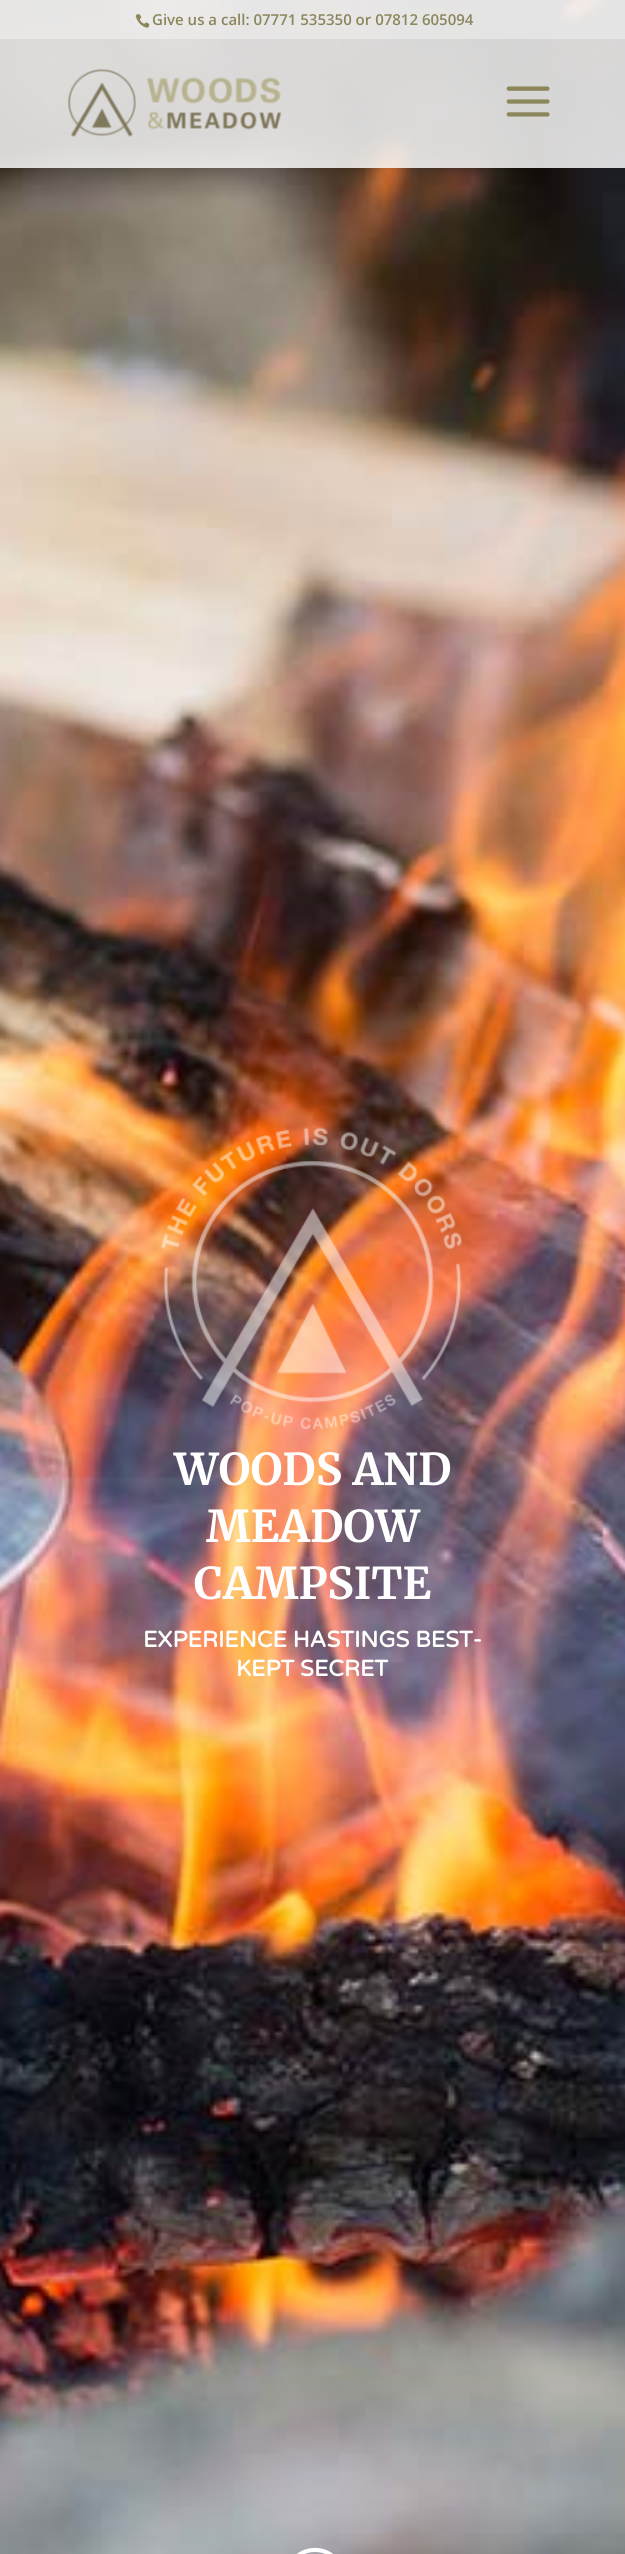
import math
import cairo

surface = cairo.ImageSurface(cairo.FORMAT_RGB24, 625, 2554)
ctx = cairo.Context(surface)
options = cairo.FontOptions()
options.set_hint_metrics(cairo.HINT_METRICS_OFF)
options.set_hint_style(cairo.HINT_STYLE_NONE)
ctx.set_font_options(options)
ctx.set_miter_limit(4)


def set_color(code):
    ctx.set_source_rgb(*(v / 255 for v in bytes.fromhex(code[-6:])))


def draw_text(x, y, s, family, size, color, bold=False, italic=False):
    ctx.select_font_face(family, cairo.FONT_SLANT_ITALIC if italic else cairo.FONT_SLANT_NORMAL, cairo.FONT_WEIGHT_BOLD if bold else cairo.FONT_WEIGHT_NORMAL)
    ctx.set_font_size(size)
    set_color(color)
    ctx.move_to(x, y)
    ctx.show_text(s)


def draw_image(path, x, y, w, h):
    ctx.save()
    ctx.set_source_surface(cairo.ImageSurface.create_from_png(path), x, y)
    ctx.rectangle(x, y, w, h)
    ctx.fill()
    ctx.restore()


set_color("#ffffff")
ctx.paint()
draw_image("assets/img4.png", 0, 0, 625, 2554)
ctx.set_source_rgba(1, 1, 1, 0.89)
ctx.rectangle(0, 0, 625, 39)
ctx.fill()
draw_image("assets/img1.png", 135, 14, 15, 14)
draw_text(152, 25, "Give us a call: 07771 535350 or 07812 605094", "Open Sans SemiBold", 15, "#8b865b")
ctx.set_source_rgba(1, 1, 1, 0.83)
ctx.rectangle(0, 39, 625, 129)
ctx.fill()
draw_image("assets/img2.png", 68, 69, 214, 68)
draw_image("assets/img3.png", 506, 86, 44, 31)
draw_image("assets/img5.png", 161, 1127, 301, 302)
draw_text(174, 1485, "WOODS AND", "Merriweather", 43.75, "#ffffff", bold=True)
draw_text(206, 1542, "MEADOW", "Merriweather", 43.75, "#ffffff", bold=True)
draw_text(194, 1599, "CAMPSITE", "Merriweather", 43.75, "#ffffff", bold=True)
draw_text(143, 1647, "EXPERIENCE HASTINGS BEST-", "Varela Round", 22.5, "#ffffff", bold=True)
draw_text(236, 1676, "KEPT SECRET", "Varela Round", 22.5, "#ffffff", bold=True)
draw_image("assets/img6.png", 297, 2547, 36, 7)
surface.write_to_png("output.png")
